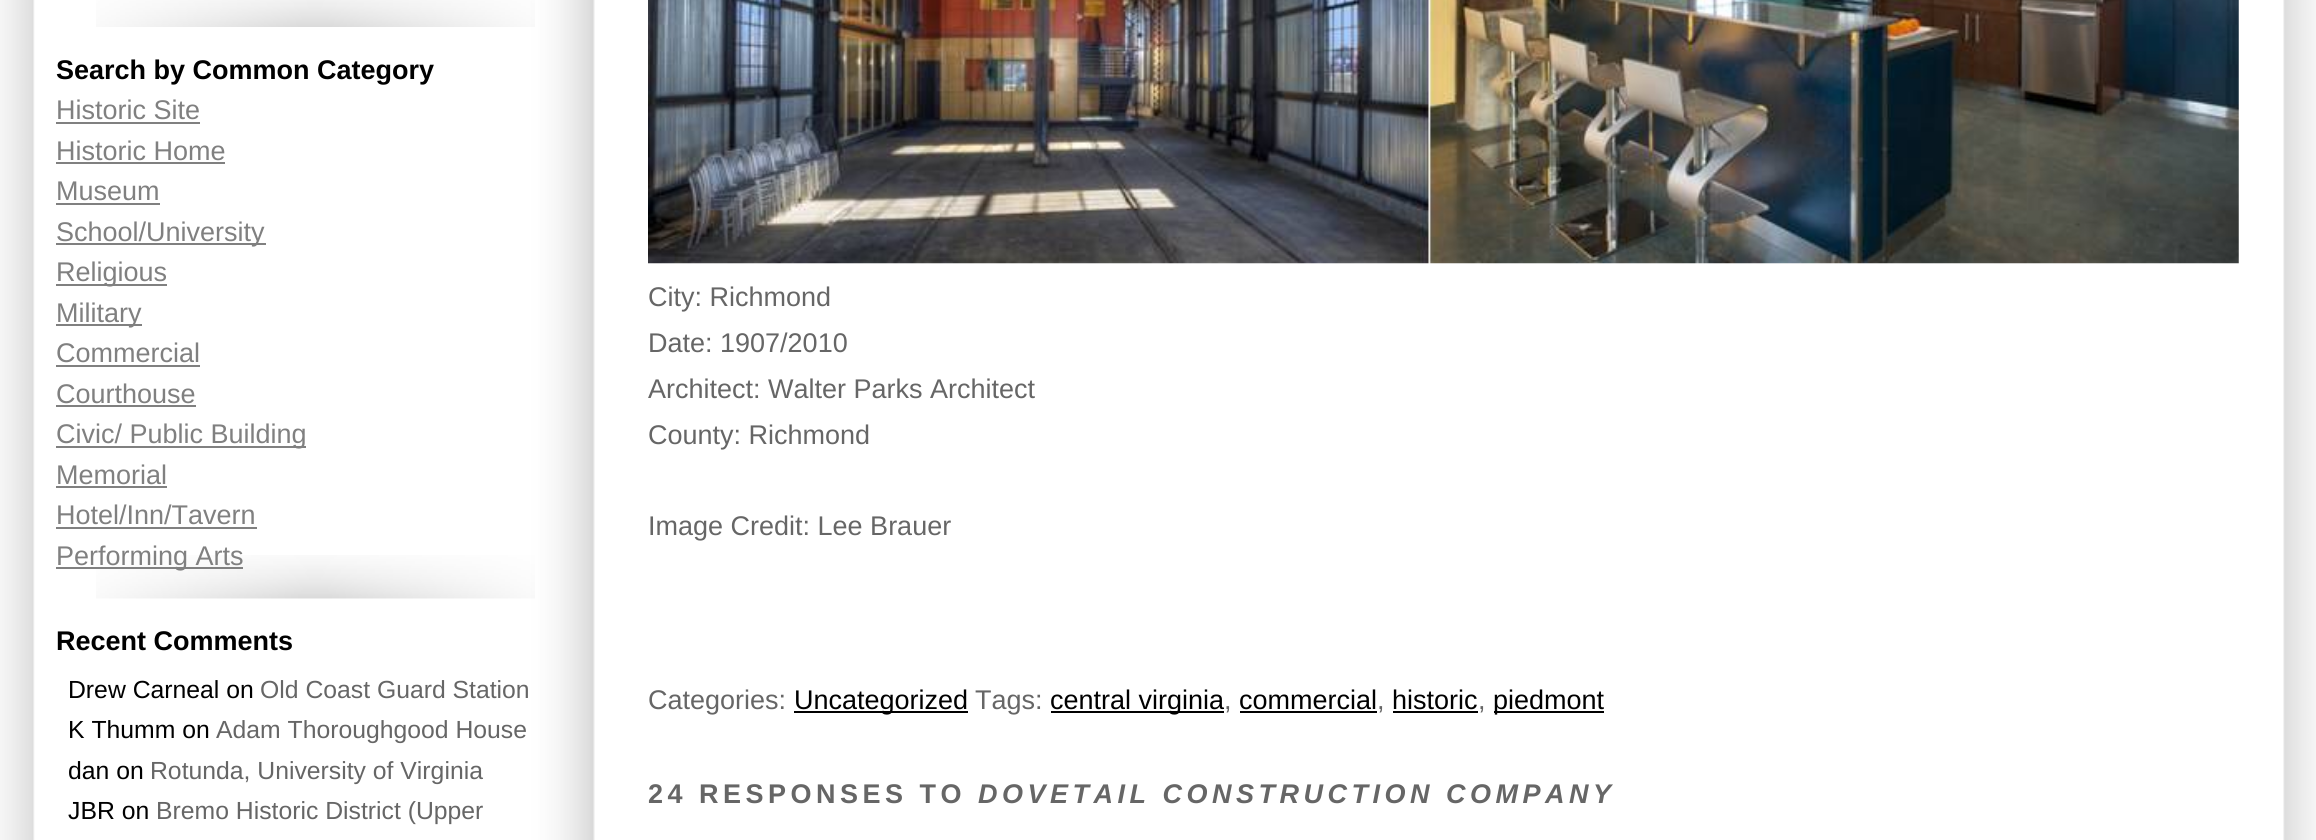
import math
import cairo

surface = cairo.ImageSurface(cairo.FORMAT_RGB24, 2316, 840)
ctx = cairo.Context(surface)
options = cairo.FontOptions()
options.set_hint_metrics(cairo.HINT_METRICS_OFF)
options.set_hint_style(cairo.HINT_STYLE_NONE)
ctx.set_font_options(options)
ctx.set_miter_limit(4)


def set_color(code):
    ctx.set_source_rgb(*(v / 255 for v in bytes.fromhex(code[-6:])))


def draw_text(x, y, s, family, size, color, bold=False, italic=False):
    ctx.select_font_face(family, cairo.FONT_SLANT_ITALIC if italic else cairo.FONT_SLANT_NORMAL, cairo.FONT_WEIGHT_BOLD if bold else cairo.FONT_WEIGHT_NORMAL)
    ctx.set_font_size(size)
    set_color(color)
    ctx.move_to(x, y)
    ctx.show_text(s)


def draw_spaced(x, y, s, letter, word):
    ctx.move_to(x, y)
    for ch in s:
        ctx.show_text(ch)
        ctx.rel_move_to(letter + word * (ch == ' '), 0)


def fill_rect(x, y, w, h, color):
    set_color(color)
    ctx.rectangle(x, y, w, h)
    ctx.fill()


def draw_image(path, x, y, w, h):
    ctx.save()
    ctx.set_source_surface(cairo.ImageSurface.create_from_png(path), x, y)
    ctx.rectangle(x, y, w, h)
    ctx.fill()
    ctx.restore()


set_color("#ffffff")
ctx.paint()
draw_image("assets/img1.png", 0, 0, 2316, 840)
draw_image("assets/img2.png", 96, 0, 439, 27)
draw_image("assets/img3.png", 96, 555, 439, 44)
draw_text(56, 79, "Search by Common Category", "Liberation Sans", 27, "#000000", bold=True)
draw_text(56, 119, "Historic Site", "Liberation Sans", 27, "#808080")
fill_rect(56, 122, 144, 2, "#808080")
draw_text(56, 160, "Historic Home", "Liberation Sans", 27, "#808080")
fill_rect(56, 162, 169, 2, "#808080")
draw_text(56, 200, "Museum", "Liberation Sans", 27, "#808080")
fill_rect(56, 203, 104, 2, "#808080")
fill_rect(56, 243, 210, 2, "#808080")
draw_text(56, 241, "School/University", "Liberation Sans", 27, "#808080")
fill_rect(56, 284, 111, 2, "#808080")
draw_text(56, 281, "Religious", "Liberation Sans", 27, "#808080")
fill_rect(56, 324, 86, 2, "#808080")
draw_text(56, 322, "Military", "Liberation Sans", 27, "#808080")
draw_text(56, 362, "Commercial", "Liberation Sans", 27, "#808080")
fill_rect(56, 365, 144, 2, "#808080")
draw_text(56, 403, "Courthouse", "Liberation Sans", 27, "#808080")
fill_rect(56, 405, 140, 2, "#808080")
fill_rect(56, 446, 250, 2, "#808080")
draw_text(56, 443, "Civic/ Public Building", "Liberation Sans", 27, "#808080")
draw_text(56, 484, "Memorial", "Liberation Sans", 27, "#808080")
fill_rect(56, 486, 111, 2, "#808080")
draw_text(56, 524, "Hotel/Inn/Tavern", "Liberation Sans", 27, "#808080")
fill_rect(56, 527, 201, 2, "#808080")
fill_rect(56, 567, 187, 2, "#808080")
draw_text(56, 565, "Performing Arts", "Liberation Sans", 27, "#808080")
draw_text(56, 650, "Recent Comments", "Liberation Sans", 27, "#000000", bold=True)
draw_text(68, 698, "Drew Carneal on", "Liberation Sans", 24.75, "#000000")
draw_text(260, 698, "Old Coast Guard Station", "Liberation Sans", 24.75, "#666666")
draw_text(68, 738, "K Thumm on", "Liberation Sans", 24.75, "#000000")
draw_text(216, 738, "Adam Thoroughgood House", "Liberation Sans", 24.75, "#666666")
draw_text(68, 779, "dan on", "Liberation Sans", 24.75, "#000000")
draw_text(150, 779, "Rotunda, University of Virginia", "Liberation Sans", 24.75, "#666666")
draw_text(68, 819, "JBR on", "Liberation Sans", 24.75, "#000000")
draw_text(156, 819, "Bremo Historic District (Upper", "Liberation Sans", 24.75, "#666666")
draw_image("assets/img4.png", 648, 0, 1591, 264)
draw_text(648, 306, "City: Richmond", "Liberation Sans", 27, "#666666")
draw_text(648, 352, "Date: 1907/2010", "Liberation Sans", 27, "#666666")
draw_text(648, 398, "Architect: Walter Parks Architect", "Liberation Sans", 27, "#666666")
draw_text(648, 444, "County: Richmond", "Liberation Sans", 27, "#666666")
draw_text(648, 535, "Image Credit: Lee Brauer", "Liberation Sans", 27, "#666666")
draw_text(648, 709, "Categories:", "Liberation Sans", 27, "#666666")
fill_rect(794, 711, 174, 2, "#000000")
draw_text(794, 709, "Uncategorized", "Liberation Sans", 27, "#000000")
draw_text(975, 709, "Tags:", "Liberation Sans", 27, "#666666")
fill_rect(1051, 711, 173, 2, "#000000")
draw_text(1050, 709, "central virginia", "Liberation Sans", 27, "#000000")
draw_text(1224, 709, ",", "Liberation Sans", 27, "#666666")
draw_text(1239, 709, "commercial", "Liberation Sans", 27, "#000000")
fill_rect(1240, 711, 137, 2, "#000000")
draw_text(1377, 709, ",", "Liberation Sans", 27, "#666666")
draw_text(1392, 709, "historic", "Liberation Sans", 27, "#000000")
fill_rect(1393, 711, 85, 2, "#000000")
draw_text(1478, 709, ",", "Liberation Sans", 27, "#666666")
fill_rect(1494, 711, 110, 2, "#000000")
draw_text(1493, 709, "piedmont", "Liberation Sans", 27, "#000000")
ctx.select_font_face("Liberation Sans", cairo.FONT_SLANT_NORMAL, cairo.FONT_WEIGHT_BOLD)
set_color("#666666")
draw_spaced(648, 803, "24 RESPONSES TO", 4.5, 0)
ctx.select_font_face("Liberation Sans", cairo.FONT_SLANT_ITALIC, cairo.FONT_WEIGHT_BOLD)
draw_spaced(978, 803, "DOVETAIL CONSTRUCTION COMPANY", 4.5, 0)
surface.write_to_png("output.png")
